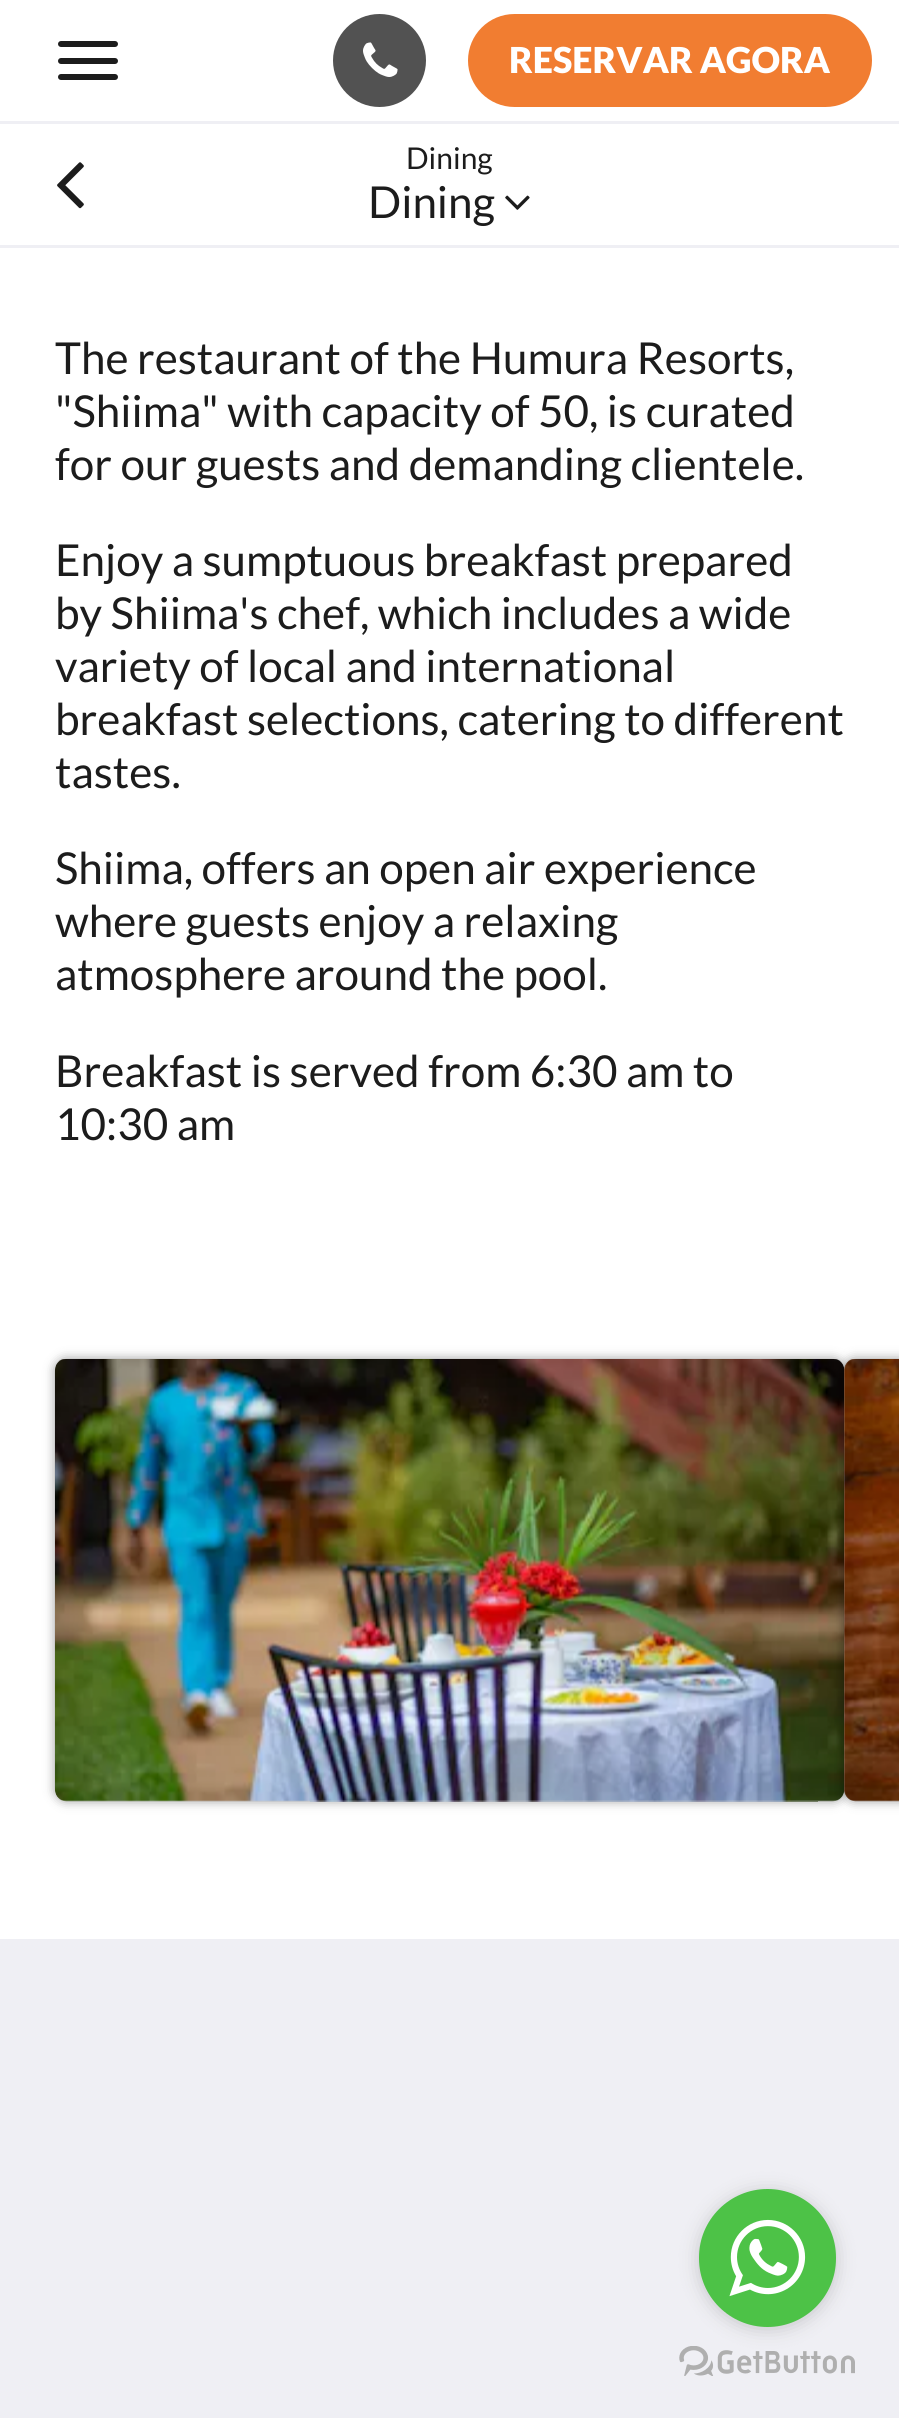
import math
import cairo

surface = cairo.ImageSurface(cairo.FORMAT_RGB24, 899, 2418)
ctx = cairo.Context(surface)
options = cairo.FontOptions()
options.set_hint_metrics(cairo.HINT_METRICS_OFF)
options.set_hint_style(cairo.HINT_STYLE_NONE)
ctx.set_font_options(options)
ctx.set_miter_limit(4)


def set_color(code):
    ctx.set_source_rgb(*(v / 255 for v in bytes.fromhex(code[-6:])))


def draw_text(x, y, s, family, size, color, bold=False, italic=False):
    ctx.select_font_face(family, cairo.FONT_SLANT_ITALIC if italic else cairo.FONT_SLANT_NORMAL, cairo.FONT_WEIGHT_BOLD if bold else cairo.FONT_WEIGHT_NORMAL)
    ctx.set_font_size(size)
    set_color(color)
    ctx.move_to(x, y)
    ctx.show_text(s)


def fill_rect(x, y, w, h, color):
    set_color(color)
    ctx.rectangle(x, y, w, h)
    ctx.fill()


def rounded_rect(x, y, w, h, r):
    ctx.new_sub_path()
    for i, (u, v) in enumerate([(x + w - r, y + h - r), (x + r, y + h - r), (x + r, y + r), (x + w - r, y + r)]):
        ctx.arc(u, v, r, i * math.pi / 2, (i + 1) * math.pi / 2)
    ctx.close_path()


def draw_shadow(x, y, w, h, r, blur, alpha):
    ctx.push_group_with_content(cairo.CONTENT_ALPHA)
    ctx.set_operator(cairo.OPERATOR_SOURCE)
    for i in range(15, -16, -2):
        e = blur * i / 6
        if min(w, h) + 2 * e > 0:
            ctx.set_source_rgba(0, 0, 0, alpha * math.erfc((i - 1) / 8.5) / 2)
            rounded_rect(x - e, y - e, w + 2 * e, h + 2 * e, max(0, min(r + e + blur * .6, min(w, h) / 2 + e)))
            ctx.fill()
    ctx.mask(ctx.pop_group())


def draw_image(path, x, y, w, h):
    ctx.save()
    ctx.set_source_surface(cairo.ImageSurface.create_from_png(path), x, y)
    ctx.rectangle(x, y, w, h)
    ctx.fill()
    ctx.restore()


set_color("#efeff4")
ctx.paint()
fill_rect(0, 0, 899, 121, "#ffffff")
set_color("#1c1c1c")
rounded_rect(58, 41, 60, 6, 3)
ctx.fill()
rounded_rect(58, 58, 60, 6, 3)
ctx.fill()
rounded_rect(58, 74, 60, 6, 3)
ctx.fill()
set_color("#525252")
ctx.arc(379.5, 60.5, 46.5, 0, 2 * math.pi)
ctx.fill()
draw_image("assets/img1.png", 363, 42, 35, 35)
set_color("#f17d31")
rounded_rect(468, 14, 404, 93, 46.5)
ctx.fill()
draw_text(509, 73, "RESERVAR AGORA", "Lato Black", 35.75, "#ffffff")
fill_rect(0, 124, 899, 121, "#ffffff")
draw_image("assets/img2.png", 57, 162, 27, 47)
draw_text(406, 169, "Dining", "Lato", 30, "#1c1c1c")
draw_text(368, 218, "Dining", "Lato", 44, "#1c1c1c")
draw_image("assets/img3.png", 505, 195, 25, 15)
fill_rect(0, 248, 899, 1691, "#ffffff")
draw_text(55, 374, "The restaurant of the Humura Resorts,", "Lato", 44, "#1c1c1c")
draw_text(55, 427, "\"Shiima\" with capacity of 50, is curated", "Lato", 44, "#1c1c1c")
draw_text(55, 480, "for our guests and demanding clientele.", "Lato", 44, "#1c1c1c")
draw_text(55, 576, "Enjoy a sumptuous breakfast prepared", "Lato", 44, "#1c1c1c")
draw_text(55, 629, "by Shiima's chef, which includes a wide", "Lato", 44, "#1c1c1c")
draw_text(55, 682, "variety of local and international", "Lato", 44, "#1c1c1c")
draw_text(55, 735, "breakfast selections, catering to different", "Lato", 44, "#1c1c1c")
draw_text(55, 788, "tastes.", "Lato", 44, "#1c1c1c")
draw_text(55, 884, "Shiima, offers an open air experience", "Lato", 44, "#1c1c1c")
draw_text(55, 937, "where guests enjoy a relaxing", "Lato", 44, "#1c1c1c")
draw_text(55, 990, "atmosphere around the pool.", "Lato", 44, "#1c1c1c")
draw_text(55, 1087, "Breakfast is served from 6:30 am to", "Lato", 44, "#1c1c1c")
draw_text(55, 1140, "10:30 am", "Lato", 44, "#1c1c1c")
set_color("#000000")
draw_shadow(55, 1359, 789, 442, 11, 5.5, 0.4)
draw_image("assets/img4.png", 55, 1359, 789, 443)
draw_shadow(844, 1359, 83, 442, 11, 5.5, 0.4)
draw_image("assets/img5.png", 844, 1359, 55, 443)
draw_image("assets/img7.png", 679, 2346, 176, 30)
set_color("#888888")
draw_shadow(699, 2192, 137, 137, 68.5, 9.5, 0.4)
set_color("#4dc247")
rounded_rect(699, 2189, 137, 138, 68.5)
ctx.fill()
draw_image("assets/img6.png", 729, 2219, 77, 78)
surface.write_to_png("output.png")
